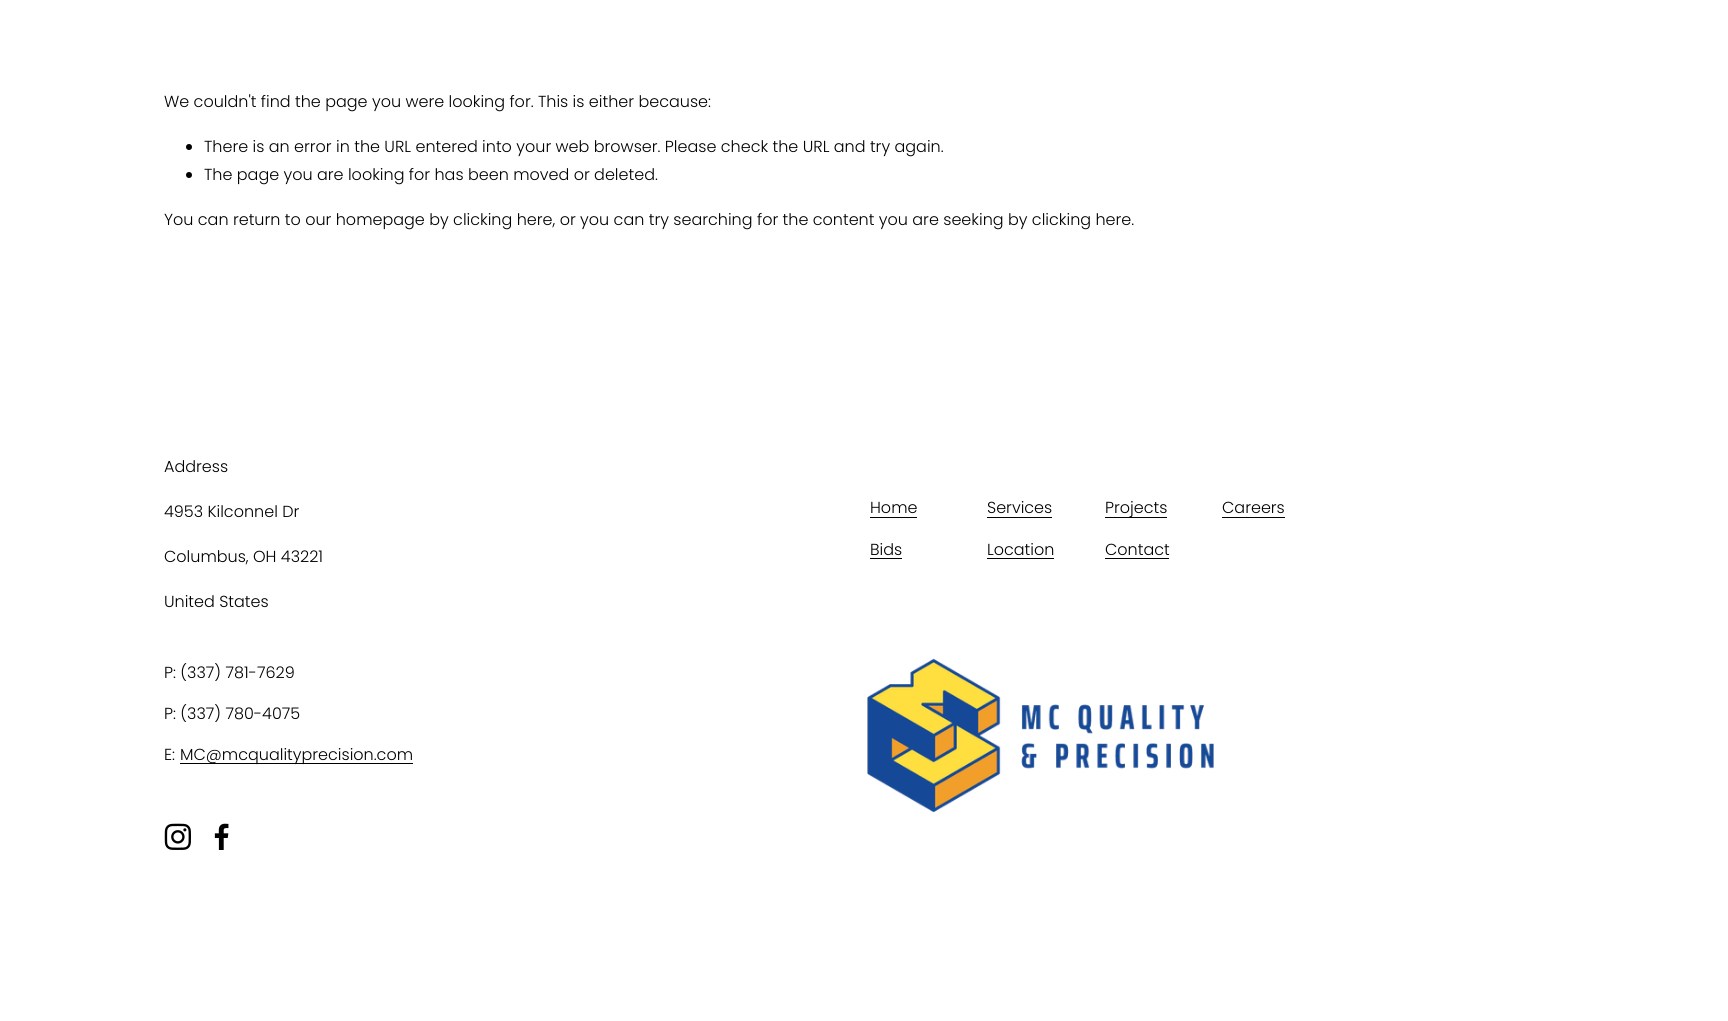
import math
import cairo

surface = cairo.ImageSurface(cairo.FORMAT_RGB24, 1728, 1021)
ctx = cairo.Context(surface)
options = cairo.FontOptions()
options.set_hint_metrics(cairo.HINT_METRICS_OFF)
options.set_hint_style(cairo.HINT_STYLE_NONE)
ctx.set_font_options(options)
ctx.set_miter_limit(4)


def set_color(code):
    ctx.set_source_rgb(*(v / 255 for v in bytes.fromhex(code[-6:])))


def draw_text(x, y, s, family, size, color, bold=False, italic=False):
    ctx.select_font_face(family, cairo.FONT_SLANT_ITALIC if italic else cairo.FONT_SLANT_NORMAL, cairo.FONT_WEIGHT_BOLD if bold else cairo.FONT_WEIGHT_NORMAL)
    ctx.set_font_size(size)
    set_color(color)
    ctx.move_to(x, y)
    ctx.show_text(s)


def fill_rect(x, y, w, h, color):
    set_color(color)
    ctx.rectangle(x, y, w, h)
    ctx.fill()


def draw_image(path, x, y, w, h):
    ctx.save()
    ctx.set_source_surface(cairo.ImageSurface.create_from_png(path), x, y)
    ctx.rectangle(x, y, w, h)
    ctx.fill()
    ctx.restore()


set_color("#ffffff")
ctx.paint()
draw_text(164, 107, "We couldn't find the page you were looking for. This is either because:", "Poppins Light", 16, "#000000")
ctx.new_path()
ctx.arc(189, 147, 3, 0, 2 * math.pi)
ctx.fill()
draw_text(204, 152, "There is an error in the URL entered into your web browser. Please check the URL and try again.", "Poppins Light", 16, "#000000")
ctx.new_path()
ctx.arc(189, 175, 3, 0, 2 * math.pi)
ctx.fill()
draw_text(204, 180, "The page you are looking for has been moved or deleted.", "Poppins Light", 16, "#000000")
draw_text(164, 225, "You can return to our homepage by clicking here, or you can try searching for the content you are seeking by clicking here.", "Poppins Light", 16, "#000000")
draw_text(164, 472, "Address", "Poppins Light", 16, "#000000")
draw_text(164, 517, "4953 Kilconnel Dr", "Poppins Light", 16, "#000000")
draw_text(164, 562, "Columbus, OH 43221", "Poppins Light", 16, "#000000")
draw_text(164, 607, "United States", "Poppins Light", 16, "#000000")
draw_text(870, 513, "Home", "Poppins Light", 16, "#000000")
fill_rect(870, 517, 47, 1, "#000000")
draw_text(987, 513, "Services", "Poppins Light", 16, "#000000")
fill_rect(987, 517, 65, 1, "#000000")
fill_rect(1105, 517, 62, 1, "#000000")
draw_text(1105, 513, "Projects", "Poppins Light", 16, "#000000")
draw_text(1222, 513, "Careers", "Poppins Light", 16, "#000000")
fill_rect(1222, 517, 63, 1, "#000000")
draw_text(870, 555, "Bids", "Poppins Light", 16, "#000000")
fill_rect(870, 558, 32, 1, "#000000")
draw_text(987, 555, "Location", "Poppins Light", 16, "#000000")
fill_rect(987, 558, 67, 1, "#000000")
draw_text(1105, 555, "Contact", "Poppins Light", 16, "#000000")
fill_rect(1105, 558, 64, 1, "#000000")
draw_text(164, 678, "P: (337) 781-7629", "Poppins Light", 16, "#000000")
draw_image("assets/img1.png", 867, 658, 347, 155)
draw_text(164, 719, "P: (337) 780-4075", "Poppins Light", 16, "#000000")
draw_text(164, 760, "E:", "Poppins Light", 16, "#000000")
fill_rect(180, 763, 233, 1, "#000000")
draw_text(180, 760, "MC@mcqualityprecision.com", "Poppins Light", 16, "#000000")
draw_image("assets/img2.png", 164, 823, 27, 27)
draw_image("assets/img3.png", 214, 823, 15, 27)
surface.write_to_png("output.png")
